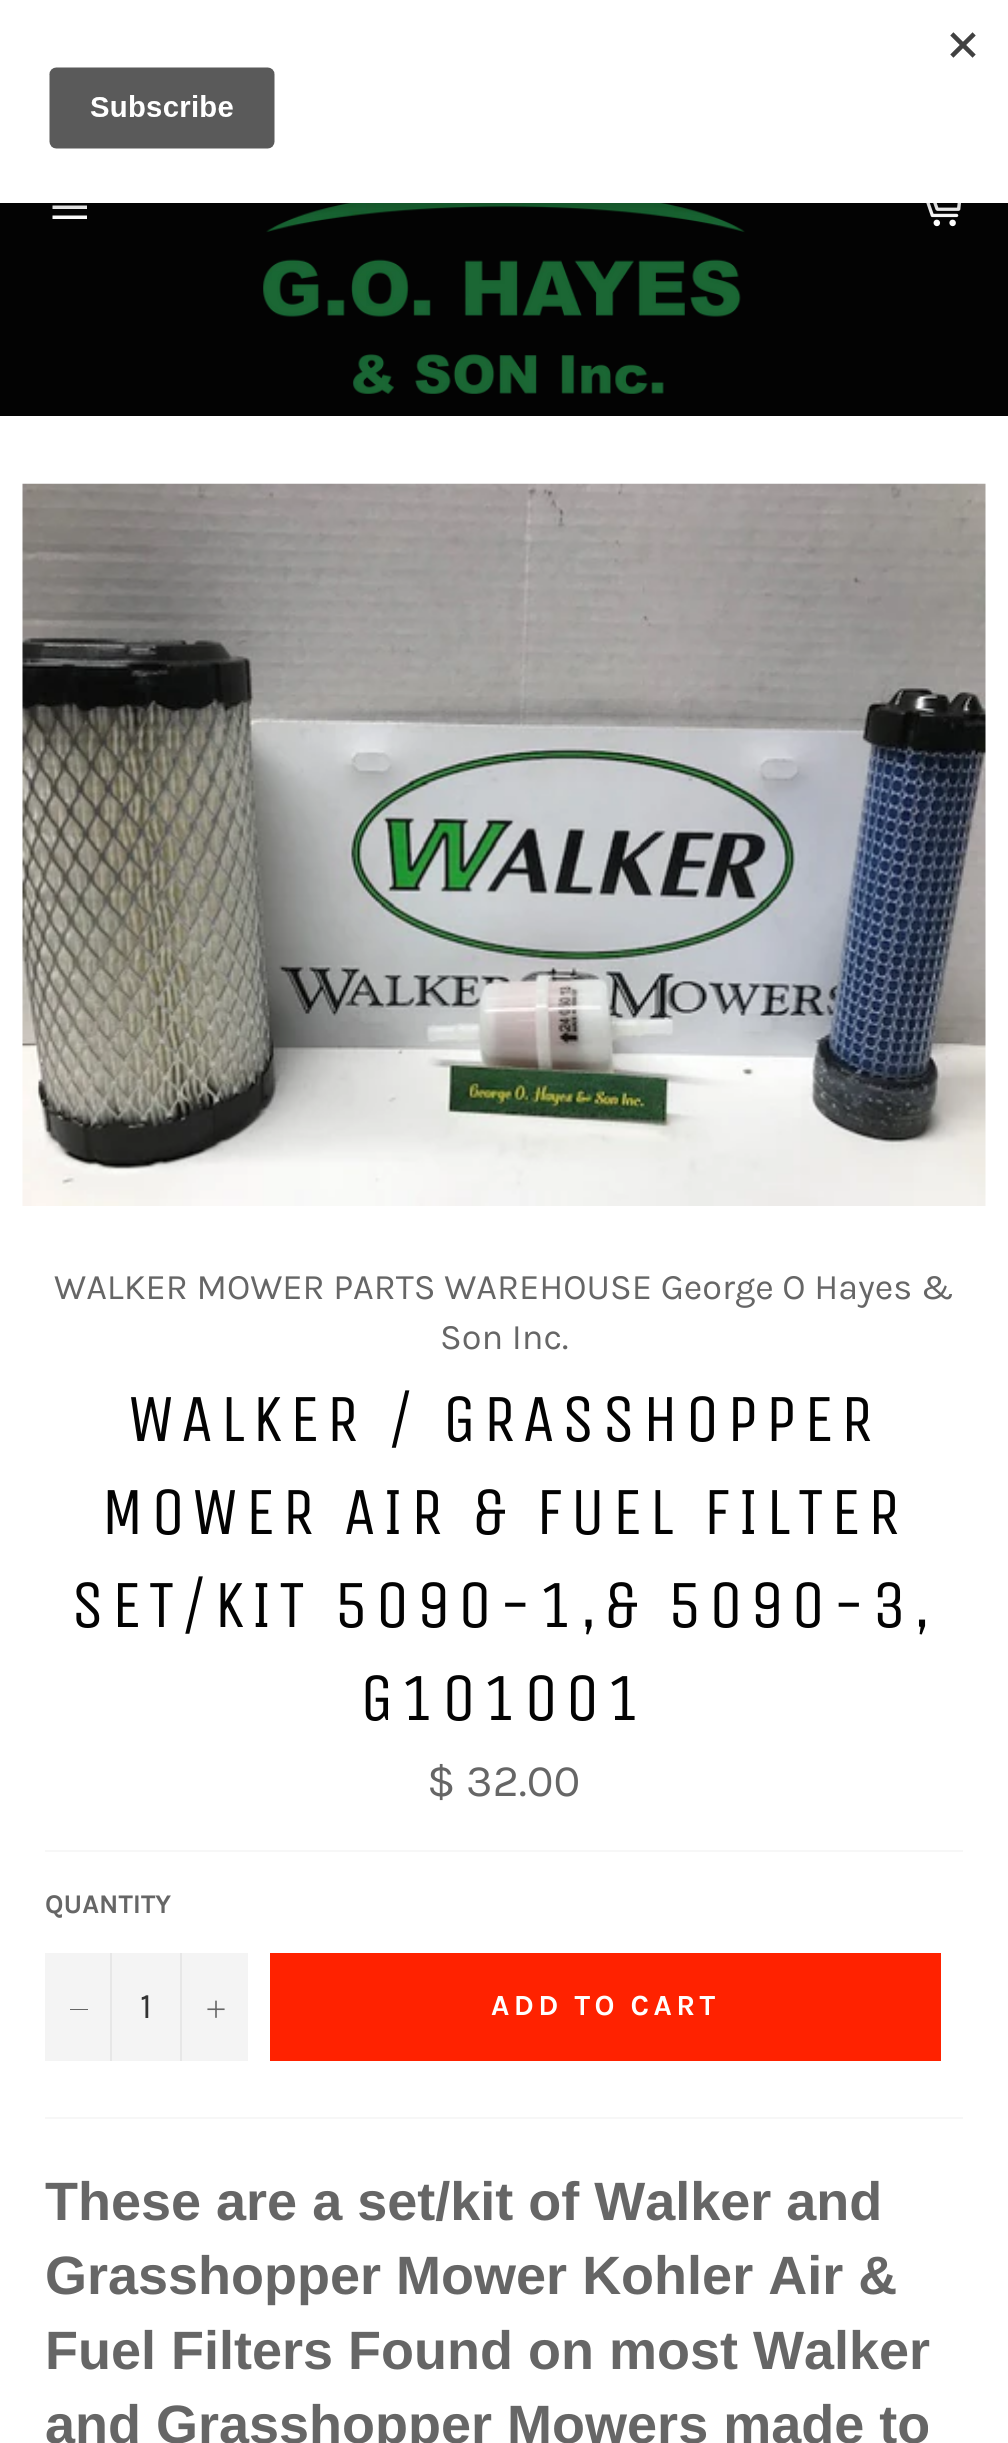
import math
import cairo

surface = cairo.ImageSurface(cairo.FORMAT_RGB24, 1008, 2443)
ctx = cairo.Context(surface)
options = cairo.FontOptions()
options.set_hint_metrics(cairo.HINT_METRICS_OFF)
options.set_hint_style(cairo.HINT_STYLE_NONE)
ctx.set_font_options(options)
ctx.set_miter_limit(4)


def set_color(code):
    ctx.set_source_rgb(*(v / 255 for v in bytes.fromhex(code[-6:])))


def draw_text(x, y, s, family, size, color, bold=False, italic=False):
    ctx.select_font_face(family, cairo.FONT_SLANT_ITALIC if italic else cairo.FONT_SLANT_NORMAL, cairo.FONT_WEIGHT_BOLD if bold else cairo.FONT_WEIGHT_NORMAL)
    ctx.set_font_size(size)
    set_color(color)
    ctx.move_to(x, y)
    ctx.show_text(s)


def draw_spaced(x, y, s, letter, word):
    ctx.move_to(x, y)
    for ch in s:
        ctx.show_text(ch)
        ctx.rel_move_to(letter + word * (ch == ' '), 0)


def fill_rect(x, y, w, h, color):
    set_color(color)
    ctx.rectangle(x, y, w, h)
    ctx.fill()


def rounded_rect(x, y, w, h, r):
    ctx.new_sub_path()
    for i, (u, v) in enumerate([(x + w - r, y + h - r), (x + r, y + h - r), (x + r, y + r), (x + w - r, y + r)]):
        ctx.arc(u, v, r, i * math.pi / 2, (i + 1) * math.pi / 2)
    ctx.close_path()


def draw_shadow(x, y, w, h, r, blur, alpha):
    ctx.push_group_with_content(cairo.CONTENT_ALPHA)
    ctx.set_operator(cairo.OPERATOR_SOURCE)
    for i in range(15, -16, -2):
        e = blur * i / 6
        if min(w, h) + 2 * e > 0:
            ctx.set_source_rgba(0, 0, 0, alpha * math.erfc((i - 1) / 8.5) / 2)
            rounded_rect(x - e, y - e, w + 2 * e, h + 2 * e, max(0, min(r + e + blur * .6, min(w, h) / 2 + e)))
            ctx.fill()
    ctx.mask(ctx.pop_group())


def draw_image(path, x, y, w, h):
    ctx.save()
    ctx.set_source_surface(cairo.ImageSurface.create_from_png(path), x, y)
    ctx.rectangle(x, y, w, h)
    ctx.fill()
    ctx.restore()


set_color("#030303")
ctx.paint()
set_color("#ffffff")
ctx.new_path()
ctx.move_to(52.5, 205.5)
ctx.line_to(87, 205.5)
ctx.line_to(87, 209)
ctx.line_to(52.5, 209)
ctx.close_path()
ctx.move_to(52.5, 195)
ctx.line_to(87, 195)
ctx.line_to(87, 198.5)
ctx.line_to(52.5, 198.5)
ctx.close_path()
ctx.move_to(52.5, 215.5)
ctx.line_to(87, 215.5)
ctx.line_to(87, 219)
ctx.line_to(52.5, 219)
ctx.close_path()
ctx.fill()
draw_image("assets/img2.png", 263, 203, 482, 191)
draw_image("assets/img3.png", 926, 203, 35, 24)
set_color("#000000")
draw_shadow(0, 7, 1008, 202, 0, 7, 0.2)
fill_rect(0, 0, 1008, 203, "#ffffff")
draw_image("assets/img1.png", 49, 32, 927, 117)
fill_rect(0, 416, 1008, 2027, "#ffffff")
draw_image("assets/img4.png", 22, 483, 964, 723)
draw_text(54, 1299, "WALKER MOWER PARTS WAREHOUSE George O Hayes &", "Karla", 36, "#666666")
draw_text(440, 1349, "Son Inc.", "Karla", 36, "#666666")
ctx.select_font_face("Unica One")
ctx.set_font_size(67.5)
set_color("#030303")
draw_spaced(128, 1441, "WALKER / GRASSHOPPER", 6.75, 0)
draw_spaced(101, 1534, "MOWER AIR & FUEL FILTER", 6.75, 0)
draw_spaced(71, 1627, "SET/KIT 5090-1,& 5090-3,", 6.75, 0)
draw_spaced(360, 1720, "G101001", 6.75, 0)
draw_text(427, 1796, "$ 32.00", "Karla", 45, "#666666")
fill_rect(45, 1850, 918, 2, "#f7f7f7")
draw_text(45, 1913, "QUANTITY", "Karla", 27, "#666666", bold=True)
fill_rect(45, 1953, 203, 108, "#f4f4f4")
fill_rect(110, 1953, 2, 108, "#e7e7e7")
fill_rect(70, 2009, 18, 1, "#666666")
draw_text(140, 2018, "1", "Karla", 36, "#333333")
fill_rect(180, 1953, 2, 108, "#e7e7e7")
draw_image("assets/img5.png", 207, 2000, 18, 18)
fill_rect(270, 1953, 671, 108, "#ff2200")
ctx.select_font_face("Karla", cairo.FONT_SLANT_NORMAL, cairo.FONT_WEIGHT_BOLD)
ctx.set_font_size(29.25)
set_color("#ffffff")
draw_spaced(491, 2015, "ADD TO CART", 4.4, 0)
fill_rect(45, 2117, 918, 2, "#f7f7f7")
draw_text(45, 2220, "These are a set/kit of Walker and", "Liberation Sans", 54, "#666666", bold=True)
draw_text(45, 2294, "Grasshopper Mower Kohler Air &", "Liberation Sans", 54, "#666666", bold=True)
draw_text(45, 2369, "Fuel Filters Found on most Walker", "Liberation Sans", 54, "#666666", bold=True)
draw_text(45, 2443, "and Grasshopper Mowers made to", "Liberation Sans", 54, "#666666", bold=True)
surface.write_to_png("output.png")
